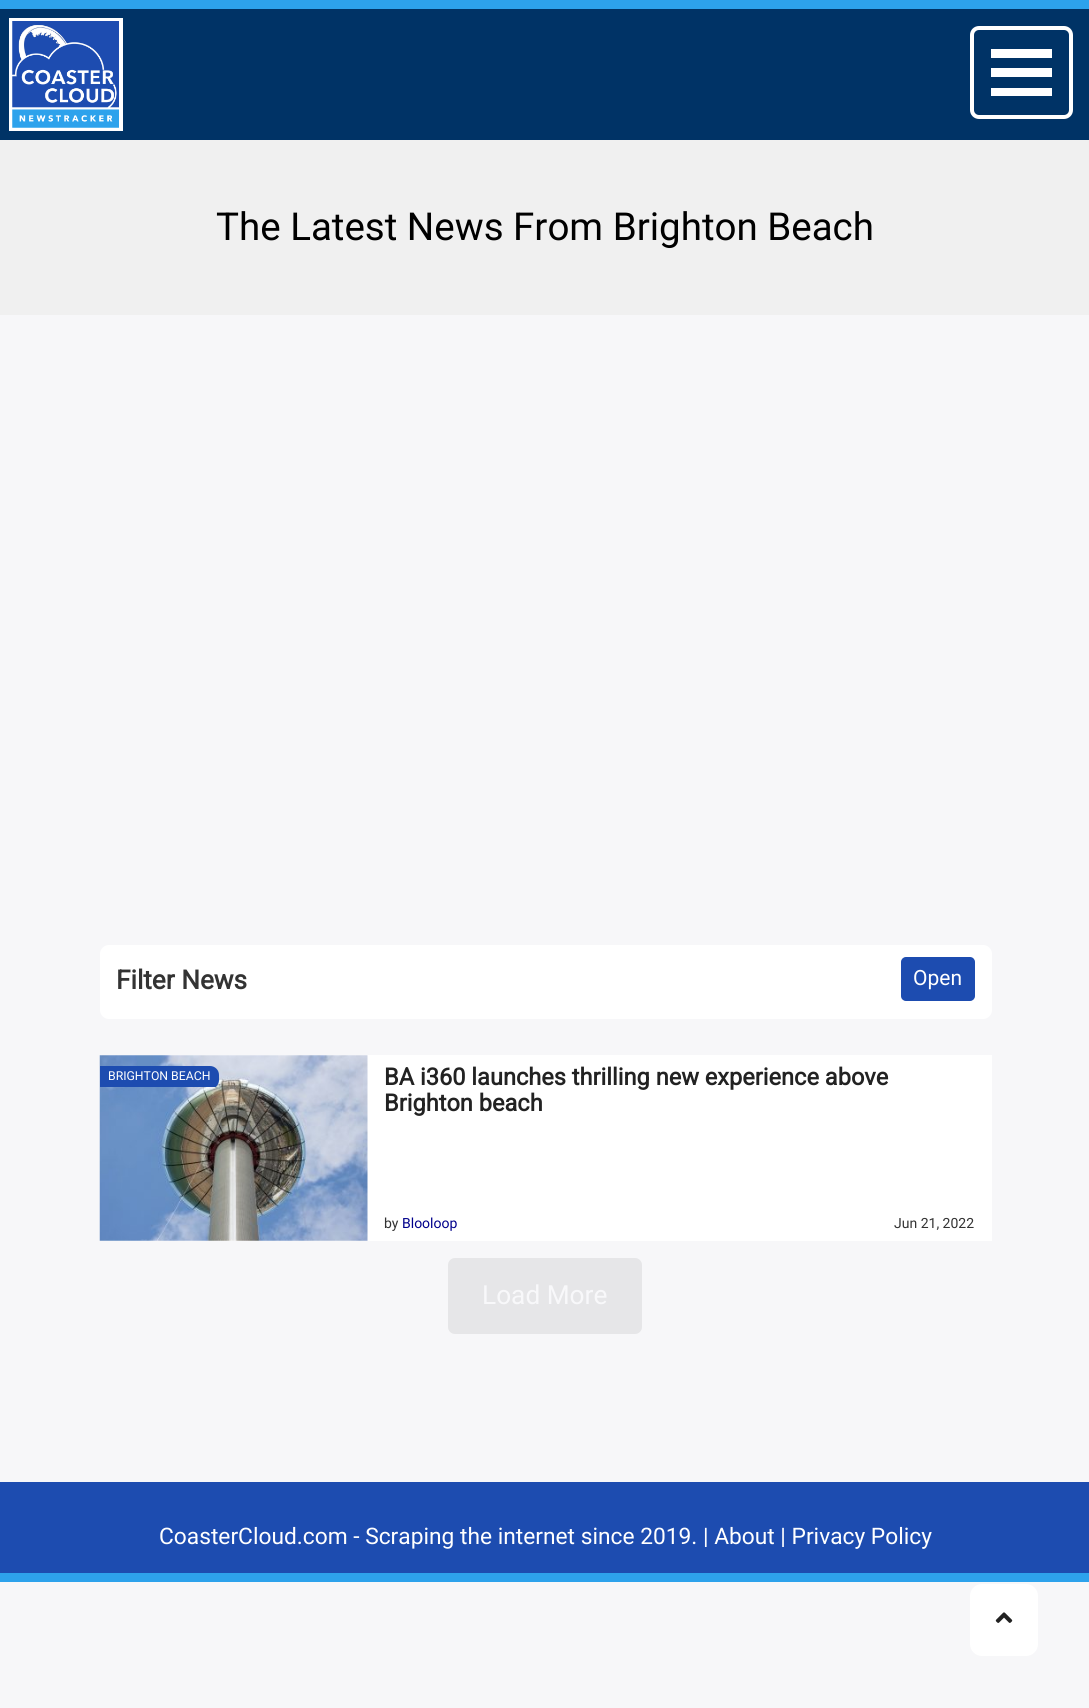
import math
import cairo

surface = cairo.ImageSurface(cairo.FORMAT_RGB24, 1089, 1708)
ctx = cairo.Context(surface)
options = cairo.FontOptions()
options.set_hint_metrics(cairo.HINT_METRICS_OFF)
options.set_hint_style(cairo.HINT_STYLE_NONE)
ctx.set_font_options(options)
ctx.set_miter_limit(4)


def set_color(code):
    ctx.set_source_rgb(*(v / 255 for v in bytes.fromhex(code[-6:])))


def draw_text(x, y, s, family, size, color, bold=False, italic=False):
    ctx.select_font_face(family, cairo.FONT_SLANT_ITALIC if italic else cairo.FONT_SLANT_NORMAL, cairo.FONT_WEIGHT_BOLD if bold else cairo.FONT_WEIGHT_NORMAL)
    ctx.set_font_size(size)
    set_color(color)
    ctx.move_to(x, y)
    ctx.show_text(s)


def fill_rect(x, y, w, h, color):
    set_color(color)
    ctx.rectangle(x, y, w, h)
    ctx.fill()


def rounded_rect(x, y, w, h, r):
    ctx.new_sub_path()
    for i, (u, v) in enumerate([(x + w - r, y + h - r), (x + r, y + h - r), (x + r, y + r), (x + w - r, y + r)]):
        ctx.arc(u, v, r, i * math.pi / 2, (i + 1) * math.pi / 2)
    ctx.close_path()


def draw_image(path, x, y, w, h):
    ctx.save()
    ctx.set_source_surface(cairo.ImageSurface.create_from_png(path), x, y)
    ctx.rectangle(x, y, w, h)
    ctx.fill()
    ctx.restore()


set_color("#f7f7f9")
ctx.paint()
fill_rect(0, 9, 1089, 131, "#003366")
fill_rect(0, 0, 1089, 9, "#2da2ec")
ctx.rectangle(11, 20, 110, 109)
set_color("#ffffff")
ctx.set_line_width(4)
ctx.stroke()
draw_image("assets/img1.png", 12, 21, 107, 107)
rounded_rect(972, 28, 99, 89, 7)
ctx.stroke()
fill_rect(991, 49, 61, 9, "#ffffff")
fill_rect(991, 68, 61, 9, "#ffffff")
fill_rect(991, 88, 61, 8, "#ffffff")
fill_rect(0, 140, 1089, 175, "#f0f0f0")
draw_text(216, 240, "The Latest News From Brighton Beach", "Roboto", 38.5, "#000000")
set_color("#ffffff")
rounded_rect(100, 945, 892, 74, 9)
ctx.fill()
draw_text(116, 989, "Filter News", "Roboto", 26.25, "#333333", bold=True)
set_color("#1d4cb0")
rounded_rect(902, 958, 72, 42, 4)
ctx.fill_preserve()
ctx.set_line_width(2)
ctx.stroke()
draw_text(913, 985, "Open", "Roboto", 21, "#ffffff")
fill_rect(100, 1055, 892, 186, "#ffffff")
draw_image("assets/img2.png", 99, 1055, 269, 186)
ctx.save()
ctx.rectangle(100, 1064, 119, 23)
ctx.clip()
set_color("#1d4cb0")
ctx.new_path()
ctx.move_to(100, 1066)
ctx.line_to(210, 1066)
ctx.curve_to(215, 1066, 219, 1070, 219, 1075)
ctx.line_to(219, 1080)
ctx.curve_to(219, 1085, 215, 1089, 210, 1089)
ctx.line_to(100, 1089)
ctx.close_path()
ctx.fill()
ctx.restore()
draw_text(108, 1080, "BRIGHTON BEACH", "Roboto", 12.25, "#ffffff")
draw_text(384, 1085, "BA i360 launches thrilling new experience above", "Roboto", 23.6, "#222222", bold=True)
draw_text(384, 1111, "Brighton beach", "Roboto", 23.6, "#222222", bold=True)
draw_text(384, 1228, "by", "Roboto", 14, "#333333")
draw_text(402, 1228, "Blooloop", "Roboto", 14, "#00008b")
draw_text(894, 1228, "Jun 21, 2022", "Roboto", 14, "#333333")
set_color("#e6e6e8")
rounded_rect(448, 1258, 194, 76, 7)
ctx.fill()
draw_text(482, 1304, "Load More", "Roboto", 26.25, "#f8f8fa")
fill_rect(0, 1482, 1089, 91, "#1d4cb0")
fill_rect(0, 1573, 1089, 9, "#2da2ec")
draw_text(159, 1544, "CoasterCloud.com - Scraping the internet since 2019. | About | Privacy Policy", "Roboto", 22.75, "#ffffff")
rounded_rect(970, 1584, 68, 72, 12)
ctx.fill()
draw_image("assets/img3.png", 995, 1612, 18, 11)
surface.write_to_png("output.png")
